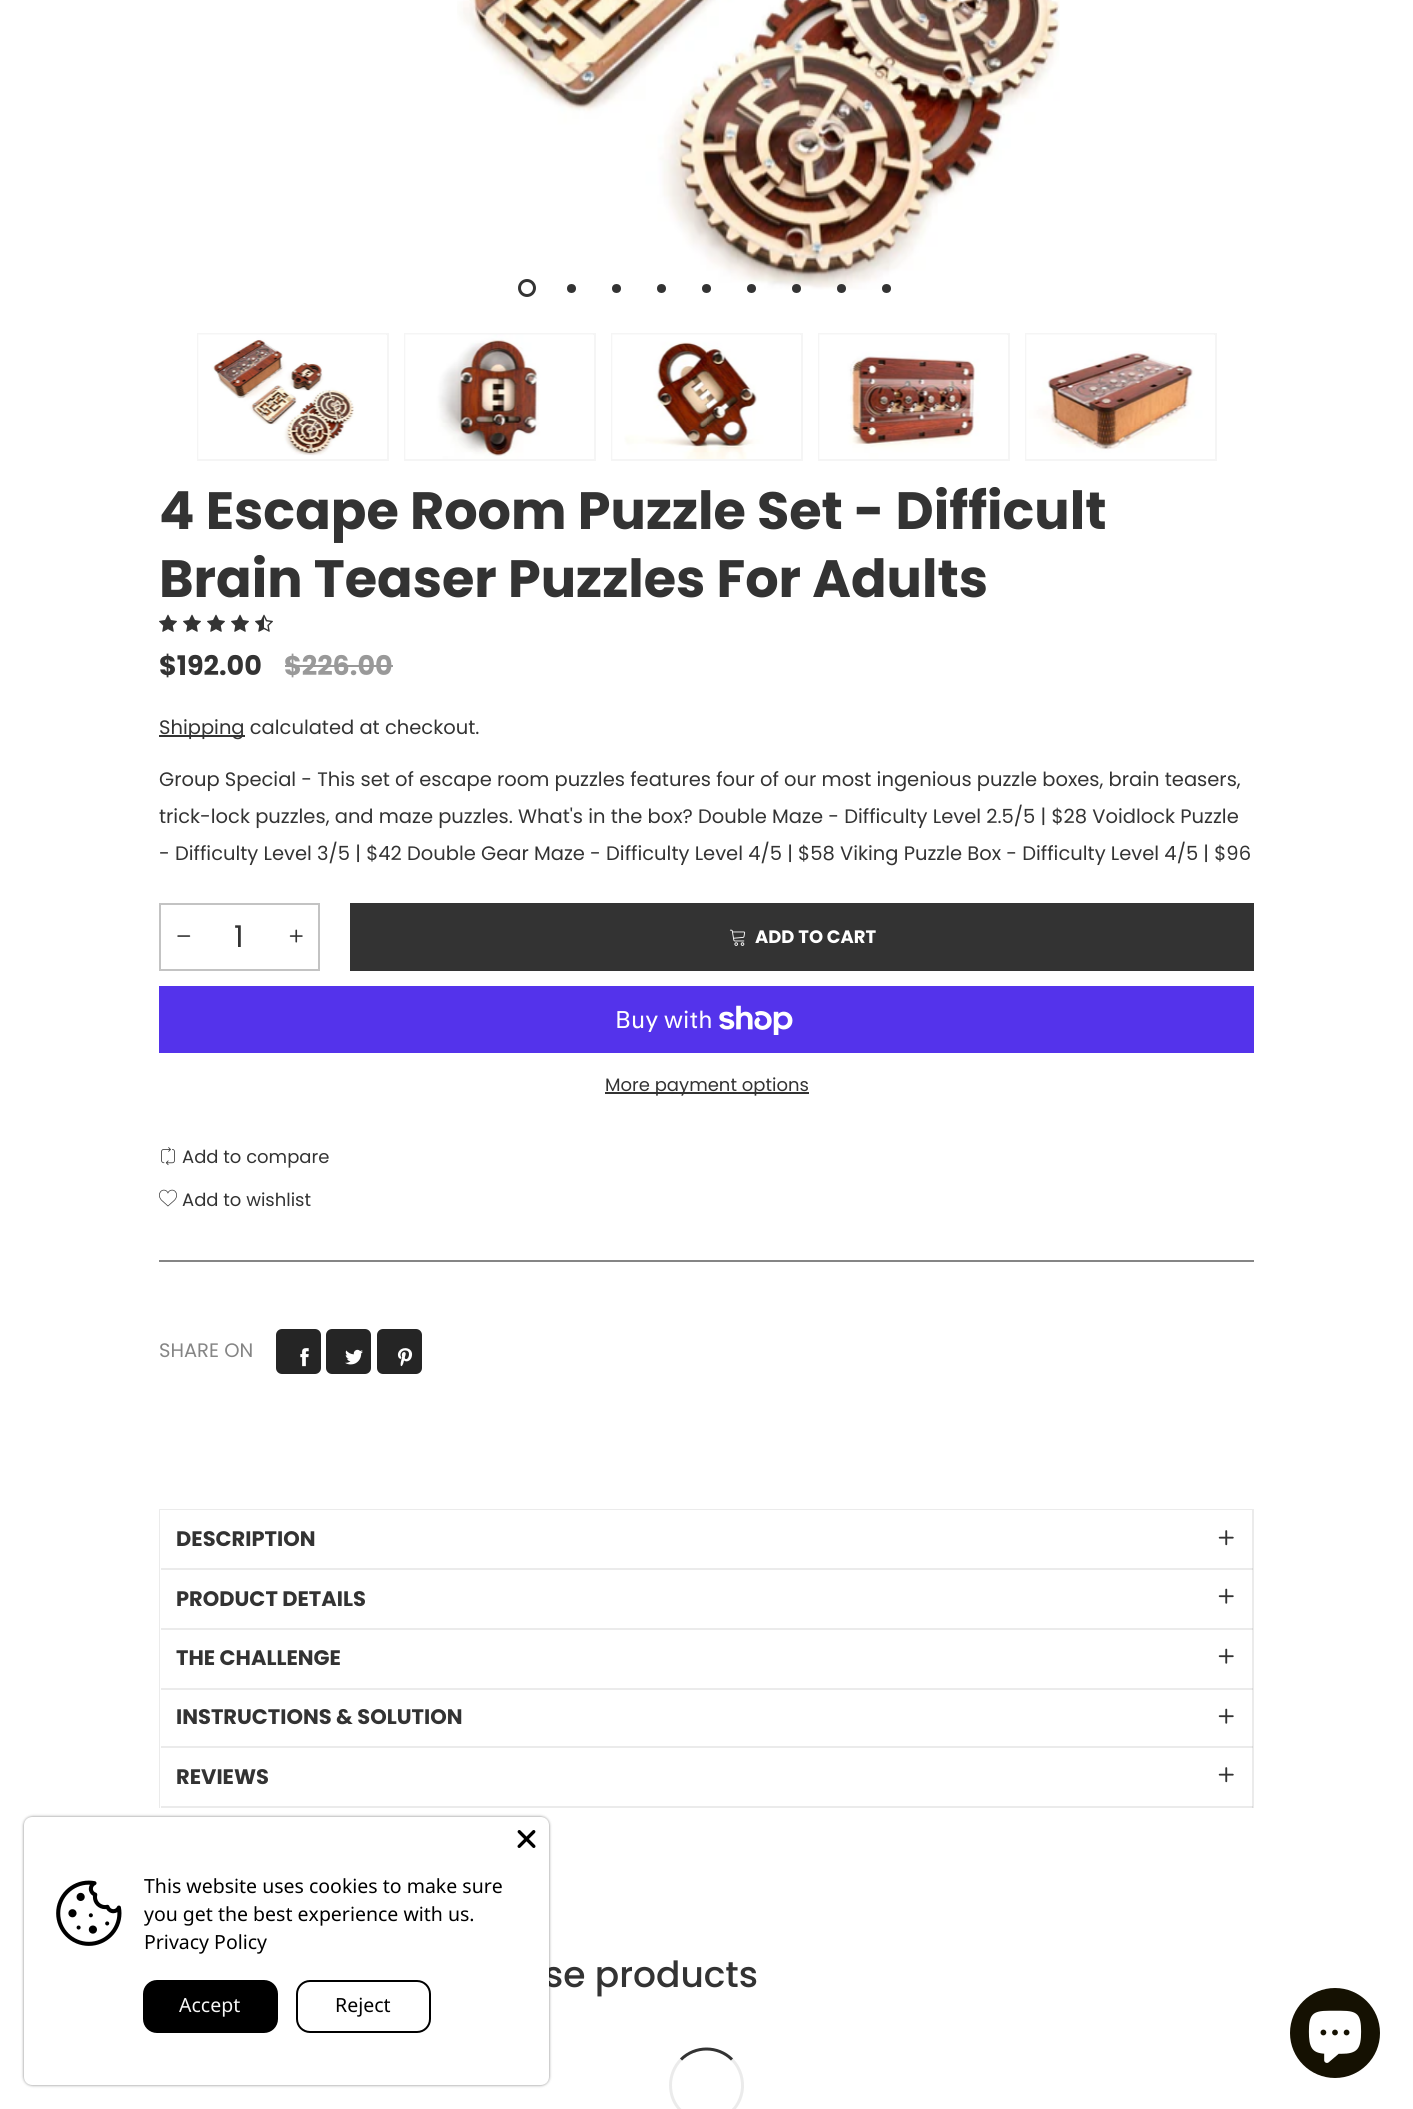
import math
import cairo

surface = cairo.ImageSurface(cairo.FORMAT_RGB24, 1413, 2109)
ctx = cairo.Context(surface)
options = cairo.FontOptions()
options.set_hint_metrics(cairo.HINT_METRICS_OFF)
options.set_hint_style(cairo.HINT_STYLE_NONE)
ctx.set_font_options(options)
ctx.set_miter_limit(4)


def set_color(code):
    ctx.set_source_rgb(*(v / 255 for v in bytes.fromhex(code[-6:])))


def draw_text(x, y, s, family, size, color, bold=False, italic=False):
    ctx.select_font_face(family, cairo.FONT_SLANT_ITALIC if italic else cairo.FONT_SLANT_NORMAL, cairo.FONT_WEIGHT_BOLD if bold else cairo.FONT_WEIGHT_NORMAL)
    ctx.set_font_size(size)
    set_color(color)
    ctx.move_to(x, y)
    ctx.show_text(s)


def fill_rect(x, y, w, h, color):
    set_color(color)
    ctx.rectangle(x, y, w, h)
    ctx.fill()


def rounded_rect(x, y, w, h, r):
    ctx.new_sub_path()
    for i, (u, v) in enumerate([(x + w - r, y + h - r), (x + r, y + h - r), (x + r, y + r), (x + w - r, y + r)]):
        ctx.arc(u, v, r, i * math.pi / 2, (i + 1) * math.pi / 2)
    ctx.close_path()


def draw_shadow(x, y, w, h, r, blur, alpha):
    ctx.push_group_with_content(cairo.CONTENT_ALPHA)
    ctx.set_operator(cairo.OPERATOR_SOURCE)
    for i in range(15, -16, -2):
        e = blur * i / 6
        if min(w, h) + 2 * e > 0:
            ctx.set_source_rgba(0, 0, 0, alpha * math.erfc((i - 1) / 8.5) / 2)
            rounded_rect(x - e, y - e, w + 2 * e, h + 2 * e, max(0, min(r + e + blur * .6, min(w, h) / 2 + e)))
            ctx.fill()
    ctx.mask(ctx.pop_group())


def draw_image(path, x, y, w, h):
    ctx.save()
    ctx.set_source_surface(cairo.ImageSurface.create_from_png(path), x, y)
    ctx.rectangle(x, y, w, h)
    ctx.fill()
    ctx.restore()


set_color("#ffffff")
ctx.paint()
draw_image("assets/img1.png", 457, 0, 603, 290)
ctx.arc(527, 288, 7.5, 0, 2 * math.pi)
set_color("#333333")
ctx.set_line_width(3)
ctx.stroke()
ctx.arc(571.5, 288.5, 4.5, 0, 2 * math.pi)
ctx.fill()
ctx.arc(616.5, 288.5, 4.5, 0, 2 * math.pi)
ctx.fill()
ctx.arc(661.5, 288.5, 4.5, 0, 2 * math.pi)
ctx.fill()
ctx.arc(706.5, 288.5, 4.5, 0, 2 * math.pi)
ctx.fill()
ctx.arc(751.5, 288.5, 4.5, 0, 2 * math.pi)
ctx.fill()
ctx.arc(796.5, 288.5, 4.5, 0, 2 * math.pi)
ctx.fill()
ctx.arc(841.5, 288.5, 4.5, 0, 2 * math.pi)
ctx.fill()
ctx.arc(886.5, 288.5, 4.5, 0, 2 * math.pi)
ctx.fill()
ctx.rectangle(198, 334, 190, 126)
set_color("#f5f5f5")
ctx.set_line_width(2)
ctx.stroke()
draw_image("assets/img2.png", 198, 334, 188, 125)
ctx.rectangle(405, 334, 190, 126)
ctx.stroke()
draw_image("assets/img3.png", 405, 334, 188, 125)
ctx.rectangle(612, 334, 190, 126)
ctx.stroke()
draw_image("assets/img4.png", 612, 334, 188, 125)
ctx.rectangle(819, 334, 190, 126)
ctx.stroke()
draw_image("assets/img5.png", 819, 334, 188, 125)
ctx.rectangle(1026, 334, 190, 126)
ctx.stroke()
draw_image("assets/img6.png", 1026, 334, 188, 125)
draw_text(159, 529, "4 Escape Room Puzzle Set - Difficult", "Poppins", 52.5, "#333333", bold=True)
draw_text(159, 597, "Brain Teaser Puzzles For Adults", "Poppins", 52.5, "#333333", bold=True)
draw_image("assets/img7.png", 159, 614, 18, 18)
draw_image("assets/img7.png", 183, 614, 18, 18)
draw_image("assets/img7.png", 207, 614, 18, 18)
draw_image("assets/img7.png", 231, 614, 18, 18)
draw_image("assets/img8.png", 255, 614, 18, 18)
draw_text(159, 675, "$192.00", "Poppins", 27, "#333333", bold=True)
draw_text(284, 675, "$226.00", "Poppins", 27, "#999999", bold=True)
fill_rect(285, 665, 108, 2, "#999999")
fill_rect(159, 735, 86, 2, "#333333")
draw_text(159, 734, "Shipping calculated at checkout.", "Poppins", 19.5, "#333333")
draw_text(159, 786, "Group Special - This set of escape room puzzles features four of our most ingenious puzzle boxes, brain teasers,", "Poppins", 19.5, "#333333")
draw_text(159, 823, "trick-lock puzzles, and maze puzzles. What's in the box? Double Maze - Difficulty Level 2.5/5 | $28 Voidlock Puzzle", "Poppins", 19.5, "#333333")
draw_text(159, 860, "- Difficulty Level 3/5 | $42 Double Gear Maze - Difficulty Level 4/5 | $58 Viking Puzzle Box - Difficulty Level 4/5 | $96", "Poppins", 19.5, "#333333")
ctx.rectangle(160, 904, 159, 66)
set_color("#c3c3c3")
ctx.stroke()
draw_image("assets/img9.png", 177, 935, 14, 2)
draw_text(234, 947, "1", "Poppins", 30, "#333333")
draw_image("assets/img10.png", 289, 929, 14, 14)
fill_rect(350, 903, 904, 68, "#333333")
draw_image("assets/img11.png", 729, 929, 17, 17)
draw_text(755, 943, "ADD TO CART", "Poppins", 18, "#ffffff", bold=True)
fill_rect(159, 986, 1095, 67, "#5433eb")
draw_text(615, 1028, "Buy with", "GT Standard", 24, "#ffffff")
draw_image("assets/img12.png", 719, 1005, 74, 30)
fill_rect(605, 1092, 204, 2, "#333333")
draw_text(605, 1091, "More payment options", "Poppins", 18, "#333333")
draw_image("assets/img13.png", 161, 1147, 14, 19)
draw_text(182, 1163, "Add to compare", "Poppins", 18, "#333333")
draw_image("assets/img14.png", 159, 1189, 18, 18)
draw_text(182, 1206, "Add to wishlist", "Poppins", 18, "#333333")
fill_rect(159, 1260, 1095, 2, "#858585")
draw_text(159, 1357, "SHARE ON", "Poppins", 19.5, "#858585")
set_color("#252525")
rounded_rect(276, 1329, 45, 45, 6)
ctx.fill()
draw_image("assets/img15.png", 300, 1348, 9, 19)
rounded_rect(326, 1329, 45, 45, 6)
ctx.fill()
draw_image("assets/img16.png", 345, 1349, 18, 16)
rounded_rect(377, 1329, 45, 45, 6)
ctx.fill()
draw_image("assets/img17.png", 397, 1348, 16, 19)
set_color("#ebebeb")
ctx.new_path()
ctx.move_to(159, 1509)
ctx.line_to(1254, 1509)
ctx.line_to(1252, 1510)
ctx.line_to(160, 1510)
ctx.close_path()
ctx.fill()
ctx.set_source_rgba(0.2, 0.2, 0.2, 0.1)
ctx.new_path()
ctx.move_to(1254, 1509)
ctx.line_to(1254, 1808)
ctx.line_to(1252, 1808)
ctx.line_to(1252, 1510)
ctx.close_path()
ctx.fill()
ctx.new_path()
ctx.move_to(159, 1808)
ctx.line_to(159, 1509)
ctx.line_to(160, 1510)
ctx.line_to(160, 1808)
ctx.close_path()
ctx.fill()
ctx.rectangle(161, 1568, 1092, 2)
ctx.fill()
draw_text(176, 1546, "DESCRIPTION", "Poppins", 21, "#333333", bold=True)
draw_image("assets/img18.png", 1218, 1530, 16, 16)
ctx.set_source_rgba(0.2, 0.2, 0.2, 0.1)
ctx.rectangle(161, 1628, 1092, 2)
ctx.fill()
draw_text(176, 1606, "PRODUCT DETAILS", "Poppins", 21, "#333333", bold=True)
draw_image("assets/img19.png", 1218, 1588, 16, 16)
ctx.set_source_rgba(0.2, 0.2, 0.2, 0.1)
ctx.rectangle(161, 1688, 1092, 2)
ctx.fill()
draw_text(176, 1665, "THE CHALLENGE", "Poppins", 21, "#333333", bold=True)
draw_image("assets/img19.png", 1218, 1648, 16, 16)
ctx.set_source_rgba(0.2, 0.2, 0.2, 0.1)
ctx.rectangle(161, 1746, 1092, 2)
ctx.fill()
draw_text(176, 1724, "INSTRUCTIONS & SOLUTION", "Poppins", 21, "#333333", bold=True)
draw_image("assets/img19.png", 1218, 1708, 16, 16)
ctx.set_source_rgba(0.2, 0.2, 0.2, 0.1)
ctx.rectangle(161, 1806, 1092, 2)
ctx.fill()
draw_text(176, 1784, "REVIEWS", "Poppins", 21, "#333333", bold=True)
draw_image("assets/img18.png", 1218, 1767, 16, 16)
draw_text(544, 1987, "se products", "Poppins Medium", 36, "#333333")
ctx.new_path()
ctx.move_to(681, 2059.5)
ctx.curve_to(695, 2045.5, 718, 2045.5, 732, 2059.5)
ctx.set_line_width(3)
ctx.stroke()
ctx.new_path()
ctx.move_to(732, 2059.5)
ctx.curve_to(740.5, 2068, 744, 2080.5, 742, 2092)
ctx.curve_to(733.5, 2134.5, 670.5, 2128, 670.5, 2085)
ctx.curve_to(670.5, 2075.5, 674.5, 2066, 681, 2059.5)
ctx.set_source_rgba(0.2, 0.2, 0.2, 0.1)
ctx.stroke()
set_color("#000000")
draw_shadow(24, 1817, 525, 268, 8, 1.5, 0.5)
set_color("#ffffff")
rounded_rect(24, 1817, 525, 268, 8)
ctx.fill()
draw_image("assets/img20.png", 517, 1830, 19, 18)
draw_image("assets/img21.png", 56, 1880, 66, 66)
draw_text(144, 1893, "This website uses cookies to make sure", "Noto Sans", 19.5, "#000000")
draw_text(144, 1921, "you get the best experience with us.", "Noto Sans", 19.5, "#000000")
draw_text(144, 1949, "Privacy Policy", "Noto Sans", 19.5, "#000000")
rounded_rect(143, 1980, 135, 53, 14)
ctx.fill()
draw_text(179, 2012, "Accept", "Noto Sans", 19.5, "#f8f8f8")
rounded_rect(297, 1981, 133, 51, 13)
set_color("#000000")
ctx.set_line_width(2)
ctx.stroke()
draw_text(335, 2012, "Reject", "Noto Sans", 19.5, "#000000")
set_color("#151102")
ctx.new_path()
ctx.arc(1335, 2033, 45, 0, 2 * math.pi)
ctx.fill()
draw_image("assets/img22.png", 1308, 2010, 54, 53)
surface.write_to_png("output.png")
